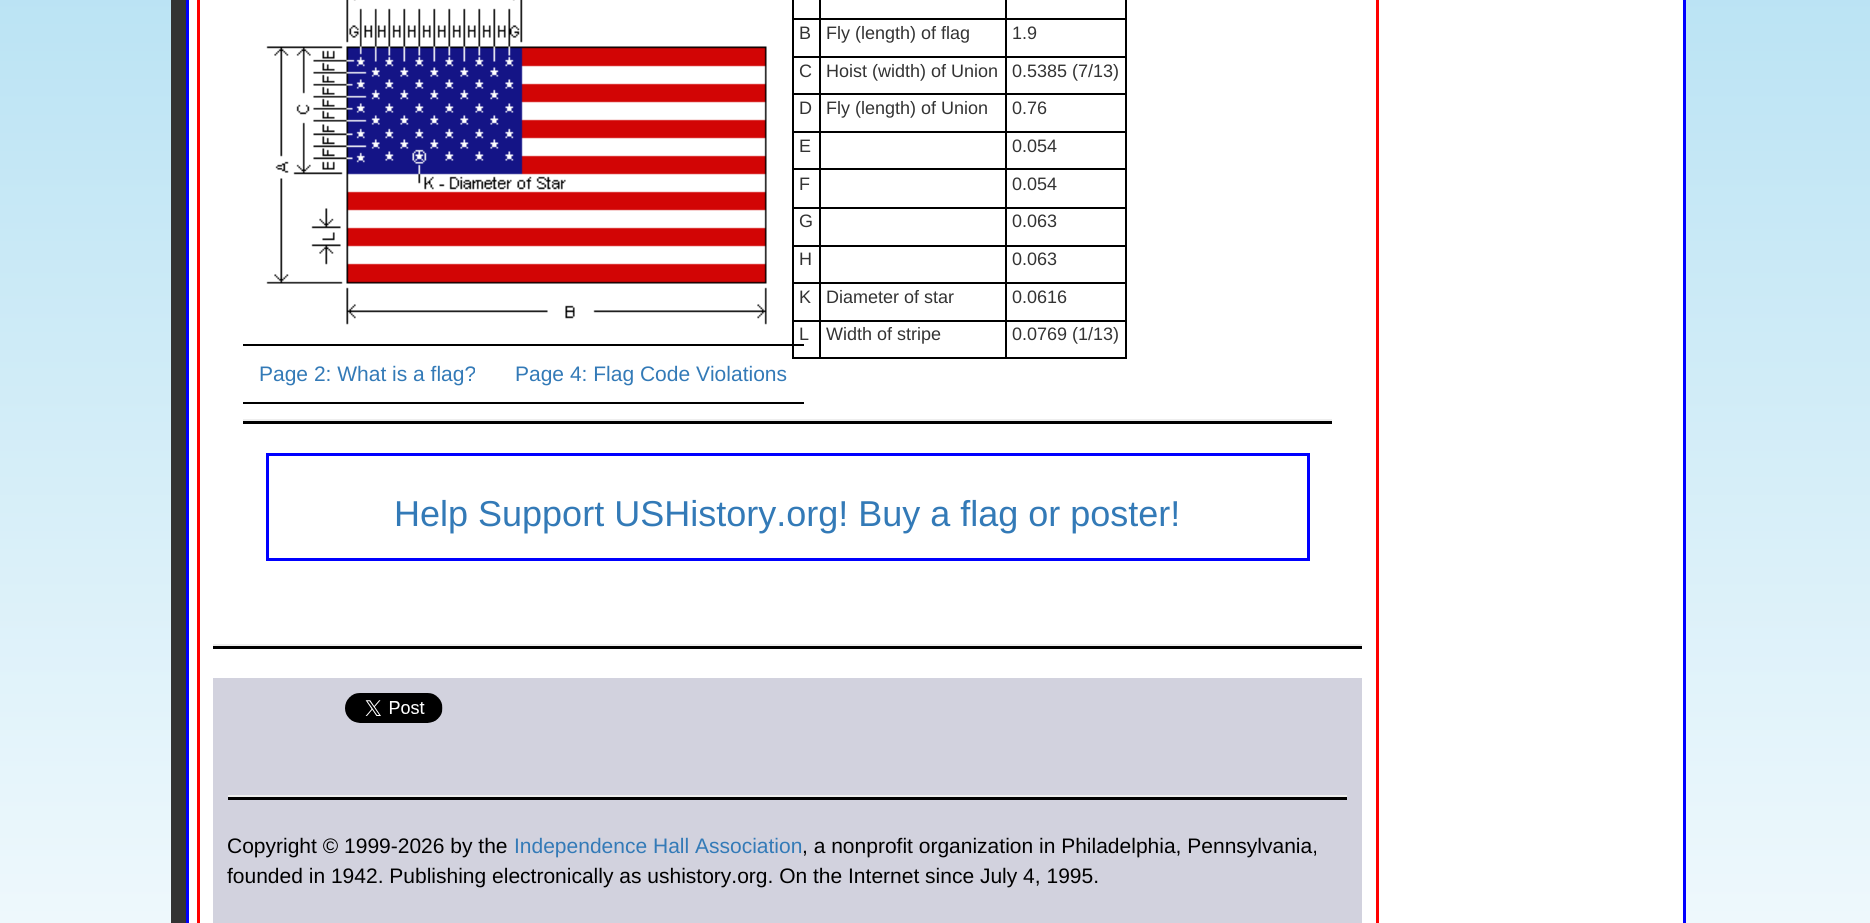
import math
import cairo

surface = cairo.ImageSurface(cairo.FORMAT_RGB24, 1870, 923)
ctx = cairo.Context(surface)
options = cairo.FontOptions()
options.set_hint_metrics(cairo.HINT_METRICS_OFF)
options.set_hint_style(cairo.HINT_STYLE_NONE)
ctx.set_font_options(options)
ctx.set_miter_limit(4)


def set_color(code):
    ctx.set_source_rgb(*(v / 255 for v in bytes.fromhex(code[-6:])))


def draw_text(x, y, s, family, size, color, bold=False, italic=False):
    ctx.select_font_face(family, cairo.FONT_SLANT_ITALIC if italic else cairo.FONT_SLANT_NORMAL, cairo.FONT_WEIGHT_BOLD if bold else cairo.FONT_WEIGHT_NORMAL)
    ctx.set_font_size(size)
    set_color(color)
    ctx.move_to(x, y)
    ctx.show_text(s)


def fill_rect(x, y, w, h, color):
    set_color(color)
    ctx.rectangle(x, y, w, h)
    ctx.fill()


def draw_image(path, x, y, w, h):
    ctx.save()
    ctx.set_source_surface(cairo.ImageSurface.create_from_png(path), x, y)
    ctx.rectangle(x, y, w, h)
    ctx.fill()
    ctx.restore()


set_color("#ffffff")
ctx.paint()
gradient = cairo.LinearGradient(935, -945, 935, 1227)
gradient.add_color_stop_rgba(0, 0.529, 0.808, 0.922, 1)
gradient.add_color_stop_rgba(1, 1, 1, 1, 1)
ctx.set_source(gradient)
ctx.rectangle(0, 0, 1870, 923)
ctx.fill()
set_color("#333333")
ctx.new_path()
ctx.move_to(187, -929)
ctx.curve_to(178, -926, 171, -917, 171, -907)
ctx.line_to(171, 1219)
ctx.curve_to(171, 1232, 181, 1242, 194, 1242)
ctx.line_to(1648, 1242)
ctx.curve_to(1658, 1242, 1667, 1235, 1670, 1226)
ctx.line_to(1664, 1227)
ctx.line_to(208, 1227)
ctx.curve_to(196, 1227, 186, 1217, 186, 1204)
ctx.line_to(186, -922)
ctx.close_path()
ctx.fill()
set_color("#ffffff")
ctx.rectangle(187.5, -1.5, 1497, 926)
ctx.fill_preserve()
set_color("#0000ff")
ctx.set_line_width(3)
ctx.stroke()
ctx.rectangle(198.5, -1.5, 1179, 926)
set_color("#ff0000")
ctx.stroke()
draw_image("assets/img1.png", 266, 0, 501, 325)
fill_rect(1005, 18, 122, 2, "#000000")
fill_rect(1005, 56, 122, 2, "#000000")
fill_rect(1005, 93, 122, 2, "#000000")
fill_rect(1005, 131, 122, 2, "#000000")
fill_rect(1005, 168, 122, 2, "#000000")
fill_rect(1005, 207, 122, 2, "#000000")
fill_rect(1005, 245, 122, 2, "#000000")
fill_rect(1005, 282, 122, 2, "#000000")
fill_rect(1005, 320, 122, 2, "#000000")
fill_rect(1125, 320, 2, 39, "#000000")
fill_rect(1005, 357, 122, 2, "#000000")
fill_rect(1005, 320, 2, 39, "#000000")
fill_rect(819, 320, 188, 2, "#000000")
fill_rect(1005, 282, 2, 39, "#000000")
fill_rect(819, 282, 188, 2, "#000000")
fill_rect(1005, 245, 2, 39, "#000000")
fill_rect(819, 245, 188, 2, "#000000")
fill_rect(1005, 207, 2, 39, "#000000")
fill_rect(819, 207, 188, 2, "#000000")
fill_rect(1005, 168, 2, 41, "#000000")
fill_rect(819, 168, 188, 2, "#000000")
fill_rect(1005, 131, 2, 39, "#000000")
fill_rect(819, 131, 188, 2, "#000000")
fill_rect(1005, 93, 2, 39, "#000000")
fill_rect(819, 93, 188, 2, "#000000")
fill_rect(1005, 56, 2, 39, "#000000")
fill_rect(819, 56, 188, 2, "#000000")
fill_rect(1005, 18, 2, 39, "#000000")
fill_rect(819, 18, 188, 2, "#000000")
fill_rect(819, 357, 188, 2, "#000000")
fill_rect(819, 320, 2, 39, "#000000")
fill_rect(792, 320, 29, 2, "#000000")
fill_rect(819, 282, 2, 39, "#000000")
fill_rect(792, 282, 29, 2, "#000000")
fill_rect(819, 245, 2, 39, "#000000")
fill_rect(792, 245, 29, 2, "#000000")
fill_rect(819, 207, 2, 39, "#000000")
fill_rect(792, 207, 29, 2, "#000000")
fill_rect(819, 168, 2, 41, "#000000")
fill_rect(792, 168, 29, 2, "#000000")
fill_rect(819, 131, 2, 39, "#000000")
fill_rect(792, 131, 29, 2, "#000000")
fill_rect(819, 93, 2, 39, "#000000")
fill_rect(792, 93, 29, 2, "#000000")
fill_rect(819, 56, 2, 39, "#000000")
fill_rect(792, 56, 29, 2, "#000000")
fill_rect(819, 18, 2, 39, "#000000")
fill_rect(792, 18, 29, 2, "#000000")
fill_rect(819, 0, 2, 20, "#000000")
fill_rect(1005, 0, 2, 20, "#000000")
fill_rect(792, 357, 29, 2, "#000000")
fill_rect(792, 320, 2, 39, "#000000")
fill_rect(792, 282, 2, 39, "#000000")
fill_rect(792, 245, 2, 39, "#000000")
fill_rect(792, 207, 2, 39, "#000000")
fill_rect(792, 168, 2, 41, "#000000")
fill_rect(792, 131, 2, 39, "#000000")
fill_rect(792, 93, 2, 39, "#000000")
fill_rect(792, 56, 2, 39, "#000000")
fill_rect(792, 0, 2, 57, "#000000")
draw_text(799, 39, "B", "Liberation Sans", 18, "#333333")
draw_text(826, 39, "Fly (length) of flag", "Liberation Sans", 18, "#333333")
fill_rect(1125, 282, 2, 39, "#000000")
fill_rect(1125, 245, 2, 39, "#000000")
fill_rect(1125, 207, 2, 39, "#000000")
fill_rect(1125, 168, 2, 41, "#000000")
fill_rect(1125, 131, 2, 39, "#000000")
fill_rect(1125, 93, 2, 39, "#000000")
fill_rect(1125, 56, 2, 39, "#000000")
fill_rect(1125, 0, 2, 57, "#000000")
draw_text(1012, 39, "1.9", "Liberation Sans", 18, "#333333")
draw_text(799, 77, "C", "Liberation Sans", 18, "#333333")
draw_text(826, 77, "Hoist (width) of Union", "Liberation Sans", 18, "#333333")
draw_text(1012, 77, "0.5385 (7/13)", "Liberation Sans", 18, "#333333")
draw_text(799, 114, "D", "Liberation Sans", 18, "#333333")
draw_text(826, 114, "Fly (length) of Union", "Liberation Sans", 18, "#333333")
draw_text(1012, 114, "0.76", "Liberation Sans", 18, "#333333")
draw_text(799, 152, "E", "Liberation Sans", 18, "#333333")
draw_text(1012, 152, "0.054", "Liberation Sans", 18, "#333333")
draw_text(799, 190, "F", "Liberation Sans", 18, "#333333")
draw_text(1012, 190, "0.054", "Liberation Sans", 18, "#333333")
draw_text(799, 227, "G", "Liberation Sans", 18, "#333333")
draw_text(1012, 227, "0.063", "Liberation Sans", 18, "#333333")
draw_text(799, 265, "H", "Liberation Sans", 18, "#333333")
draw_text(1012, 265, "0.063", "Liberation Sans", 18, "#333333")
draw_text(799, 303, "K", "Liberation Sans", 18, "#333333")
draw_text(826, 303, "Diameter of star", "Liberation Sans", 18, "#333333")
draw_text(1012, 303, "0.0616", "Liberation Sans", 18, "#333333")
draw_text(799, 340, "L", "Liberation Sans", 18, "#333333")
draw_text(826, 340, "Width of stripe", "Liberation Sans", 18, "#333333")
draw_text(1012, 340, "0.0769 (1/13)", "Liberation Sans", 18, "#333333")
draw_text(259, 381, "Page 2: What is a flag?", "Liberation Sans", 21, "#337ab7")
fill_rect(243, 344, 561, 2, "#000000")
fill_rect(243, 402, 561, 2, "#000000")
draw_text(515, 381, "Page 4: Flag Code Violations", "Liberation Sans", 21, "#337ab7")
fill_rect(243, 421, 1089, 3, "#000000")
fill_rect(243, 419, 1089, 2, "#eeeeee")
ctx.rectangle(267.5, 454.5, 1041, 105)
set_color("#0000ff")
ctx.stroke()
draw_text(394, 526, "Help Support USHistory.org! Buy a flag or poster!", "Liberation Sans", 36, "#337ab7")
fill_rect(213, 646, 1149, 3, "#000000")
fill_rect(213, 644, 1149, 2, "#eeeeee")
fill_rect(213, 678, 1149, 245, "#d2d2de")
draw_image("assets/img2.png", 345, 693, 98, 30)
fill_rect(228, 797, 1119, 3, "#000000")
fill_rect(228, 795, 1119, 2, "#eeeeee")
draw_text(227, 853, "Copyright © 1999-2026 by the", "Liberation Sans", 21, "#000000")
draw_text(514, 853, "Independence Hall Association", "Liberation Sans", 21, "#337ab7")
draw_text(802, 853, ", a nonprofit organization in Philadelphia, Pennsylvania,", "Liberation Sans", 21, "#000000")
draw_text(227, 883, "founded in 1942. Publishing electronically as ushistory.org. On the Internet since July 4, 1995.", "Liberation Sans", 21, "#000000")
surface.write_to_png("output.png")
